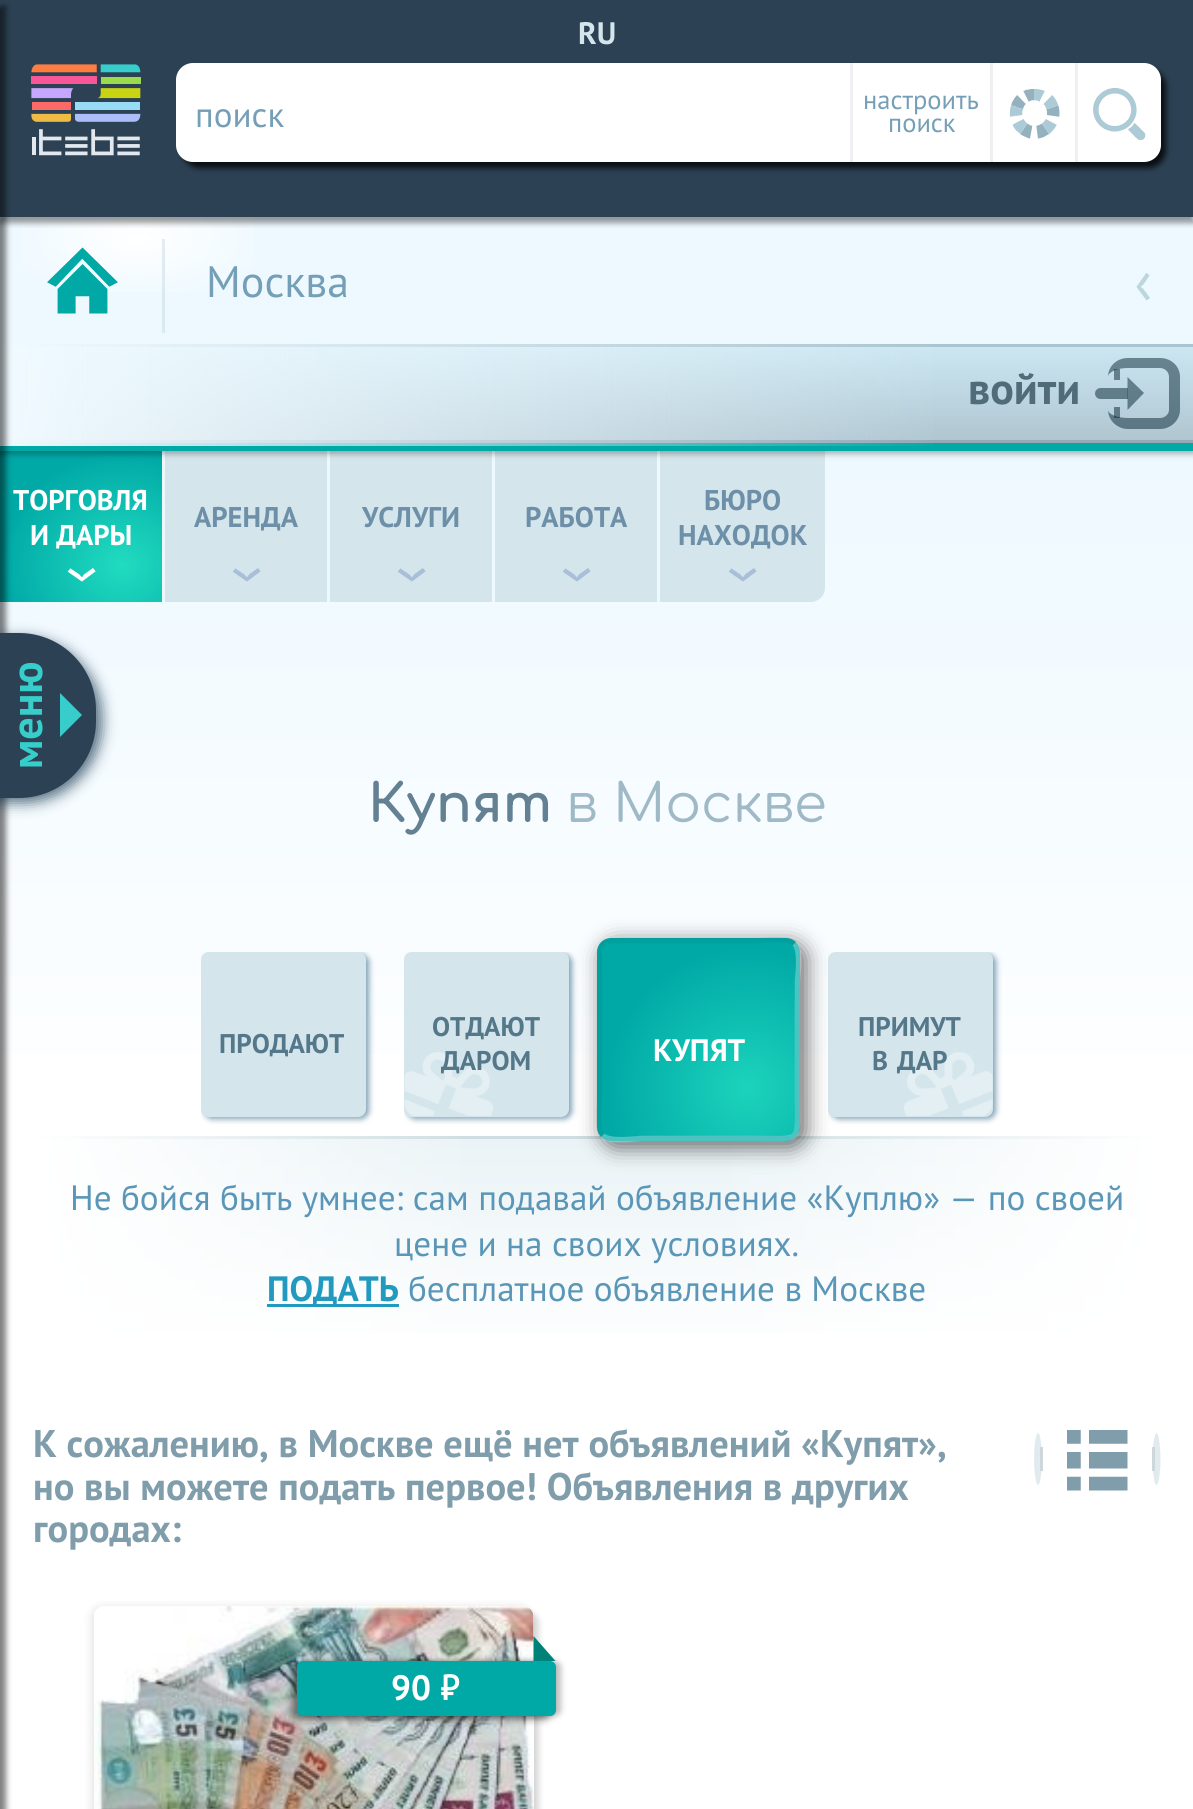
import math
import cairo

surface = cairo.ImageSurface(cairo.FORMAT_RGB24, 1193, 1809)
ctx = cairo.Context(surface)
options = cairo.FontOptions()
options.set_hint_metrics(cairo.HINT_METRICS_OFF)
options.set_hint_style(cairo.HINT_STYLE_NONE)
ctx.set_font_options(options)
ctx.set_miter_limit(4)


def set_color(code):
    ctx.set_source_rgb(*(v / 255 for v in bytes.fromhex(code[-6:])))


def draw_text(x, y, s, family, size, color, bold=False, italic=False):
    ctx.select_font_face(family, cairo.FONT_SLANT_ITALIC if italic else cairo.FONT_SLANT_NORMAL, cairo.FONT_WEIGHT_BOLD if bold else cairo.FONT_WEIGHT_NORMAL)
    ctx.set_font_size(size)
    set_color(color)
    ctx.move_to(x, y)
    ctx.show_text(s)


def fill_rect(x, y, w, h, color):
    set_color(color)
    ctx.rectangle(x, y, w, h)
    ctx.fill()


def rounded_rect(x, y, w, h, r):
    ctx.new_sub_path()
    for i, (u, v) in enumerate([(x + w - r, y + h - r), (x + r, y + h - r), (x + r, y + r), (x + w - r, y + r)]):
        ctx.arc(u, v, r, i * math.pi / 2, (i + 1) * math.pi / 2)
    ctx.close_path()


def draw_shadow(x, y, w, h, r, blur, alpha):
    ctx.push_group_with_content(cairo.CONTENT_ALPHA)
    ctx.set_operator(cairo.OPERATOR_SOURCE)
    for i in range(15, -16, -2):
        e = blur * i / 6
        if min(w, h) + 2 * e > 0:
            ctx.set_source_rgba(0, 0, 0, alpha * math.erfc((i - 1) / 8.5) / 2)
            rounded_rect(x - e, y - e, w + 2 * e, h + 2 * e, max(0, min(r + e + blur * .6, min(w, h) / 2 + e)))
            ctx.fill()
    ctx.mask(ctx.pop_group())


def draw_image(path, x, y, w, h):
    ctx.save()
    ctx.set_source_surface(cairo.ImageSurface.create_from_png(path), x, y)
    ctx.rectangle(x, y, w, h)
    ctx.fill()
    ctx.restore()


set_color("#ffffff")
ctx.paint()
fill_rect(0, 0, 1193, 217, "#2c4254")
fill_rect(0, 217, 1193, 127, "#eef9ff")
gradient = cairo.LinearGradient(597, 451, 597, 602)
gradient.add_color_stop_rgba(0, 0.933, 0.976, 1, 1)
gradient.add_color_stop_rgba(1, 0.945, 0.98, 1, 1)
ctx.set_source(gradient)
ctx.rectangle(811, 451, 382, 151)
ctx.fill()
fill_rect(162, 451, 3, 151, "#eef9ff")
gradient = cairo.RadialGradient(0, 0, 0, 0, 0, 1)
gradient.set_matrix(cairo.Matrix(1 / 173, 0, 0, 1 / 161, -1 * 122 / 173, -1 * 565 / 161))
gradient.add_color_stop_rgba(0, 0.129, 0.863, 0.753, 1)
gradient.add_color_stop_rgba(0.7, 0, 0.659, 0.651, 1)
gradient.add_color_stop_rgba(1, 0, 0.659, 0.651, 1)
ctx.set_source(gradient)
ctx.rectangle(0, 451, 162, 151)
ctx.fill()
fill_rect(165, 451, 162, 151, "#d4e6ec")
fill_rect(327, 451, 3, 151, "#eef9ff")
fill_rect(330, 451, 162, 151, "#d4e6ec")
fill_rect(492, 451, 3, 151, "#eef9ff")
fill_rect(495, 451, 162, 151, "#d4e6ec")
fill_rect(657, 451, 3, 151, "#eef9ff")
set_color("#d4e6ec")
ctx.new_path()
ctx.move_to(660, 451)
ctx.line_to(825, 451)
ctx.line_to(825, 588)
ctx.curve_to(825, 595.5, 818.5, 602, 811, 602)
ctx.line_to(660, 602)
ctx.close_path()
ctx.fill()
set_color("#000000")
draw_shadow(0, 443, 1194, 11, 0, 3, 0.3)
gradient = cairo.LinearGradient(597, 344, 597, 443)
gradient.add_color_stop_rgba(0, 0.8, 0.91, 0.953, 1)
gradient.add_color_stop_rgba(1, 0.686, 0.773, 0.816, 1)
ctx.set_source(gradient)
ctx.rectangle(6, 347, 1187, 93)
ctx.fill()
fill_rect(0, 440, 1193, 3, "#93a9b6")
fill_rect(0, 344, 1193, 3, "#aac4d1")
fill_rect(0, 443, 1193, 8, "#00a8a6")
gradient = cairo.LinearGradient(0, 395, 954, 395)
gradient.add_color_stop_rgba(0, 0.941, 0.98, 1, 1)
gradient.add_color_stop_rgba(1, 0.941, 0.98, 1, 0)
ctx.set_source(gradient)
ctx.rectangle(0, 344, 933, 102)
ctx.fill()
gradient = cairo.LinearGradient(597, 602, 597, 1152)
gradient.add_color_stop_rgba(0, 0.945, 0.98, 1, 1)
gradient.add_color_stop_rgba(1, 1, 1, 1, 1)
ctx.set_source(gradient)
ctx.rectangle(0, 602, 1193, 452)
ctx.fill()
set_color("#000000")
draw_shadow(-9, 6, 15, 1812, 0, 3, 0.5)
draw_image("assets/img1.png", 31, 64, 110, 92)
draw_text(578, 44, "RU", "PT Sans", 31, "#d4e6ec", bold=True)
set_color("#000000")
draw_shadow(182, 69, 984, 99, 17, 3, 0.8)
set_color("#ffffff")
rounded_rect(176, 63, 985, 99, 17)
ctx.fill()
draw_text(195, 127, "поиск", "PT Sans", 35, "#759fb7")
fill_rect(850, 63, 3, 99, "#eef0f3")
draw_text(863, 109, "настроить", "PT Sans", 26.5, "#759fb7")
draw_text(888, 132, "поиск", "PT Sans", 26.5, "#759fb7")
fill_rect(990, 63, 3, 99, "#eef0f3")
draw_image("assets/img2.png", 1009, 89, 51, 50)
fill_rect(1075, 63, 3, 99, "#eef0f3")
draw_image("assets/img3.png", 1093, 88, 53, 52)
fill_rect(162, 303, 3, 30, "#dbeaf0")
gradient = cairo.RadialGradient(0, 0, 0, 0, 0, 1)
gradient.set_matrix(cairo.Matrix(1 / 194, 0, 0, 1 / 89, -1 * 138 / 194, -1 * 239 / 89))
gradient.add_color_stop_rgba(0, 1, 1, 1, 1)
gradient.add_color_stop_rgba(0.7, 0.933, 0.976, 1, 1)
gradient.add_color_stop_rgba(1, 0.933, 0.976, 1, 1)
ctx.set_source(gradient)
ctx.rectangle(22, 217, 232, 75)
ctx.fill()
ctx.save()
ctx.rectangle(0, 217, 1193, 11)
ctx.clip()
set_color("#000000")
draw_shadow(0, 212, 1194, 11, 0, 3, 0.4)
ctx.restore()
gradient = cairo.RadialGradient(0, 0, 0, 0, 0, 1)
gradient.set_matrix(cairo.Matrix(1 / 194, 0, 0, 1 / 89, -1 * 138 / 194, -1 * 239 / 89))
gradient.add_color_stop_rgba(0, 0.898, 0.929, 0.941, 1)
gradient.add_color_stop_rgba(0.7, 0.859, 0.918, 0.941, 1)
gradient.add_color_stop_rgba(1, 0.859, 0.918, 0.941, 1)
ctx.set_source(gradient)
ctx.rectangle(162, 239, 3, 64)
ctx.fill()
draw_image("assets/img4.png", 47, 247, 71, 67)
draw_text(206, 297, "Москва", "PT Sans", 44, "#759fb7")
draw_text(1134, 303, "‹", "PT Sans", 62, "#bcd6de")
ctx.set_source_rgba(0.031, 0.141, 0.2, 0.5)
ctx.set_fill_rule(cairo.FILL_RULE_EVEN_ODD)
ctx.new_path()
ctx.move_to(1128, 358)
ctx.line_to(1160, 358)
ctx.curve_to(1171, 358, 1180, 366, 1180, 377)
ctx.line_to(1180, 410)
ctx.curve_to(1180, 420, 1171, 429, 1160, 429)
ctx.line_to(1128, 429)
ctx.curve_to(1117, 429, 1108, 420, 1108, 410)
ctx.line_to(1108, 377)
ctx.curve_to(1108, 366, 1117, 358, 1128, 358)
ctx.close_path()
ctx.move_to(1128, 368)
ctx.line_to(1160, 368)
ctx.curve_to(1165, 368, 1169, 372, 1169, 377)
ctx.line_to(1169, 410)
ctx.curve_to(1169, 414, 1165, 418, 1160, 418)
ctx.line_to(1128, 418)
ctx.curve_to(1117, 418, 1108, 414, 1108, 410)
ctx.line_to(1108, 377)
ctx.curve_to(1108, 372, 1117, 368, 1128, 368)
ctx.close_path()
ctx.fill()
draw_text(968, 404, "войти", "PT Sans", 44, "#516c79", bold=True)
ctx.set_source_rgba(0.031, 0.141, 0.2, 0.5)
ctx.new_path()
ctx.move_to(1100.5, 388)
ctx.line_to(1128, 388)
ctx.line_to(1128, 399)
ctx.line_to(1100.5, 399)
ctx.curve_to(1097.5, 399, 1095, 396.5, 1095, 393.5)
ctx.curve_to(1095, 390.5, 1097.5, 388, 1100.5, 388)
ctx.close_path()
ctx.fill()
ctx.set_fill_rule(cairo.FILL_RULE_WINDING)
ctx.new_path()
ctx.move_to(1127.5, 410)
ctx.line_to(1127.5, 377)
ctx.line_to(1144, 393)
ctx.close_path()
ctx.fill()
ctx.rectangle(1114, 369, 6, 11)
ctx.fill()
ctx.rectangle(1114, 407, 6, 11)
ctx.fill()
draw_text(13, 510, "ТОРГОВЛЯ", "PT Sans", 28.5, "#ffffff", bold=True)
draw_text(30, 545, "И ДАРЫ", "PT Sans", 28.5, "#ffffff", bold=True)
ctx.save()
ctx.translate(98, 584)
ctx.rotate(-90 * math.pi / 180)
draw_text(0, 0, "‹", "PT Sans", 62, "#ffffff")
ctx.restore()
draw_text(194, 527, "АРЕНДА", "PT Sans", 28.5, "#6d8fa7", bold=True)
ctx.save()
ctx.translate(263, 584)
ctx.rotate(-90 * math.pi / 180)
draw_text(0, 0, "‹", "PT Sans", 62, "#a9bed8")
ctx.restore()
draw_text(362, 527, "УСЛУГИ", "PT Sans", 28.5, "#6d8fa7", bold=True)
ctx.save()
ctx.translate(428, 584)
ctx.rotate(-90 * math.pi / 180)
draw_text(0, 0, "‹", "PT Sans", 62, "#a9bed8")
ctx.restore()
draw_text(525, 527, "РАБОТА", "PT Sans", 28.5, "#6d8fa7", bold=True)
ctx.save()
ctx.translate(593, 584)
ctx.rotate(-90 * math.pi / 180)
draw_text(0, 0, "‹", "PT Sans", 62, "#a9bed8")
ctx.restore()
draw_text(704, 510, "БЮРО", "PT Sans", 28.5, "#6d8fa7", bold=True)
draw_text(678, 545, "НАХОДОК", "PT Sans", 28.5, "#6d8fa7", bold=True)
ctx.save()
ctx.translate(759, 584)
ctx.rotate(-90 * math.pi / 180)
draw_text(0, 0, "‹", "PT Sans", 62, "#a9bed8")
ctx.restore()
draw_text(368, 822, "Купят", "Comfortaa", 53, "#638192", bold=True)
draw_text(566, 822, "в Москве", "Comfortaa", 53, "#a0b9c7")
ctx.save()
ctx.rectangle(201, 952, 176, 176)
ctx.clip()
set_color("#00446d")
draw_shadow(204, 954, 165, 165, 8, 3, 0.5)
ctx.restore()
set_color("#d4e6ec")
rounded_rect(201, 952, 165, 165, 8)
ctx.fill()
draw_text(219, 1053, "ПРОДАЮТ", "PT Sans", 27, "#54778a", bold=True)
ctx.save()
ctx.rectangle(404, 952, 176, 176)
ctx.clip()
set_color("#00446d")
draw_shadow(407, 954, 165, 165, 8, 3, 0.5)
ctx.restore()
set_color("#d4e6ec")
rounded_rect(404, 952, 165, 165, 8)
ctx.fill()
draw_text(432, 1036, "ОТДАЮТ", "PT Sans", 27, "#54778a", bold=True)
draw_image("assets/img5.png", 404, 1052, 89, 64)
draw_text(441, 1070, "ДАРОМ", "PT Sans", 27, "#54778a", bold=True)
ctx.save()
ctx.rectangle(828, 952, 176, 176)
ctx.clip()
set_color("#00446d")
draw_shadow(831, 954, 165, 165, 8, 3, 0.5)
ctx.restore()
set_color("#d4e6ec")
rounded_rect(828, 952, 165, 165, 8)
ctx.fill()
gradient = cairo.LinearGradient(597, 1139, 597, 1414)
gradient.add_color_stop_rgba(0, 0.918, 0.953, 0.965, 1)
gradient.add_color_stop_rgba(0.8, 1, 1, 1, 1)
gradient.add_color_stop_rgba(0.9, 1, 1, 1, 1)
ctx.set_source(gradient)
ctx.rectangle(33, 1139, 1128, 194)
ctx.fill()
fill_rect(33, 1136, 1128, 3, "#cedde1")
gradient = cairo.LinearGradient(710, 1266, 1161, 1266)
gradient.add_color_stop_rgba(0, 1, 1, 1, 0)
gradient.add_color_stop_rgba(1, 1, 1, 1, 1)
ctx.set_source(gradient)
ctx.rectangle(734, 1136, 427, 197)
ctx.fill()
set_color("#000000")
draw_shadow(602, 943, 204, 204, 14, 11, 0.6)
set_color("#00a8a6")
rounded_rect(597, 938, 203, 203, 14)
ctx.fill()
ctx.new_path()
ctx.move_to(794.5, 943.5)
ctx.curve_to(801.5, 951, 797.5, 977, 797.5, 981)
ctx.line_to(797.5, 1098)
ctx.curve_to(797.5, 1143.5, 802.5, 1138.5, 757, 1138.5)
ctx.line_to(640, 1138.5)
ctx.curve_to(636, 1138.5, 610, 1142.5, 602.5, 1135.5)
ctx.set_source_rgba(1, 1, 1, 0.3)
ctx.set_line_width(5.5)
ctx.stroke()
ctx.new_path()
ctx.move_to(602.5, 1135.5)
ctx.curve_to(595.5, 1128, 599.5, 1102, 599.5, 1098)
ctx.line_to(599.5, 981)
ctx.curve_to(599.5, 935.5, 594.5, 940.5, 640, 940.5)
ctx.line_to(757, 940.5)
ctx.curve_to(761, 940.5, 787, 936.5, 794.5, 943.5)
ctx.set_source_rgba(0, 0, 0, 0.05)
ctx.stroke()
gradient = cairo.RadialGradient(747, 1088, 0, 747, 1088, 204)
gradient.add_color_stop_rgba(0, 0.216, 1, 0.82, 0.5)
gradient.add_color_stop_rgba(0.7, 0.216, 1, 0.82, 0)
gradient.add_color_stop_rgba(1, 0.216, 1, 0.82, 0)
ctx.set_source(gradient)
rounded_rect(602, 943, 193, 193, 8)
ctx.fill()
draw_text(653, 1061, "КУПЯТ", "PT Sans", 31, "#ffffff", bold=True)
draw_text(858, 1036, "ПРИМУТ", "PT Sans", 27, "#54778a", bold=True)
draw_text(872, 1070, "В", "PT Sans", 27, "#54778a", bold=True)
draw_image("assets/img6.png", 904, 1052, 89, 64)
draw_text(897, 1070, "ДАР", "PT Sans", 27, "#54778a", bold=True)
gradient = cairo.LinearGradient(33, 1266, 484, 1266)
gradient.add_color_stop_rgba(0, 1, 1, 1, 1)
gradient.add_color_stop_rgba(1, 1, 1, 1, 0)
ctx.set_source(gradient)
ctx.rectangle(33, 1136, 427, 197)
ctx.fill()
draw_text(70, 1210, "Не бойся быть умнее: сам подавай объявление «Куплю» — по своей", "PT Sans", 35.2, "#5996b7")
draw_text(394, 1256, "цене и на своих условиях.", "PT Sans", 35.2, "#5996b7")
fill_rect(267, 1304, 132, 3, "#229abf")
draw_text(267, 1301, "ПОДАТЬ", "PT Sans", 35.2, "#229abf", bold=True)
draw_text(408, 1301, "бесплатное объявление в Москве", "PT Sans", 35.2, "#5996b7")
draw_text(33, 1457, "К сожалению, в Москве ещё нет объявлений «Купят»,", "PT Sans", 38.5, "#809dac", bold=True)
draw_text(33, 1500, "но вы можете подать первое! Объявления в других", "PT Sans", 38.5, "#809dac", bold=True)
draw_text(33, 1542, "городах:", "PT Sans", 38.5, "#809dac", bold=True)
set_color("#e1ebef")
ctx.new_path()
ctx.move_to(1038, 1433)
ctx.curve_to(1040, 1433, 1042, 1444.5, 1042, 1459)
ctx.curve_to(1042, 1473.5, 1040, 1485, 1038, 1485)
ctx.curve_to(1036, 1485, 1034, 1473.5, 1034, 1459)
ctx.curve_to(1034, 1444.5, 1036, 1433, 1038, 1433)
ctx.close_path()
ctx.fill()
fill_rect(1040, 1447, 3, 24, "#ced8dc")
draw_image("assets/img7.png", 1067, 1430, 61, 61)
set_color("#e1ebef")
ctx.new_path()
ctx.move_to(1156.5, 1433)
ctx.curve_to(1158.5, 1433, 1160.5, 1444.5, 1160.5, 1459)
ctx.curve_to(1160.5, 1473.5, 1158.5, 1485, 1156.5, 1485)
ctx.curve_to(1154.5, 1485, 1152.5, 1473.5, 1152.5, 1459)
ctx.curve_to(1152.5, 1444.5, 1154.5, 1433, 1156.5, 1433)
ctx.close_path()
ctx.fill()
fill_rect(1152, 1447, 3, 24, "#ced8dc")
set_color("#000000")
draw_shadow(91, 1606, 440, 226, 11, 4, 0.1)
draw_shadow(99, 1612, 440, 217, 11, 3, 0.15)
set_color("#ffffff")
rounded_rect(94, 1606, 440, 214, 11)
ctx.fill()
draw_image("assets/img8.png", 94, 1606, 440, 203)
draw_image("assets/img9.png", 525, 1606, 9, 203)
set_color("#000000")
draw_shadow(303, 1661, 258, 55, 6, 3, 0.25)
draw_shadow(292, 1664, 258, 55, 6, 4, 0.5)
set_color("#00a8a6")
rounded_rect(297, 1661, 259, 55, 6)
ctx.fill()
set_color("#008279")
ctx.new_path()
ctx.move_to(555.5, 1661)
ctx.line_to(533.5, 1661)
ctx.line_to(533.5, 1636)
ctx.close_path()
ctx.fill()
draw_text(391, 1700, "90", "PT Sans", 35.2, "#ffffff", bold=True)
draw_text(440, 1700, "₽", "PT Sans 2", 35.2, "#ffffff", bold=True)
set_color("#0f314a")
draw_shadow(-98, 638, 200, 165, 77, 7, 0.7)
set_color("#2c4254")
rounded_rect(-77, 633, 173, 165, 77)
ctx.fill()
ctx.save()
ctx.translate(42, 769)
ctx.rotate(-90 * math.pi / 180)
draw_text(0, 0, "меню", "PT Sans", 44, "#36cdca", bold=True)
ctx.restore()
set_color("#36cdca")
ctx.new_path()
ctx.move_to(60, 737)
ctx.line_to(60, 693)
ctx.line_to(82, 715)
ctx.close_path()
ctx.fill()
surface.write_to_png("output.png")
